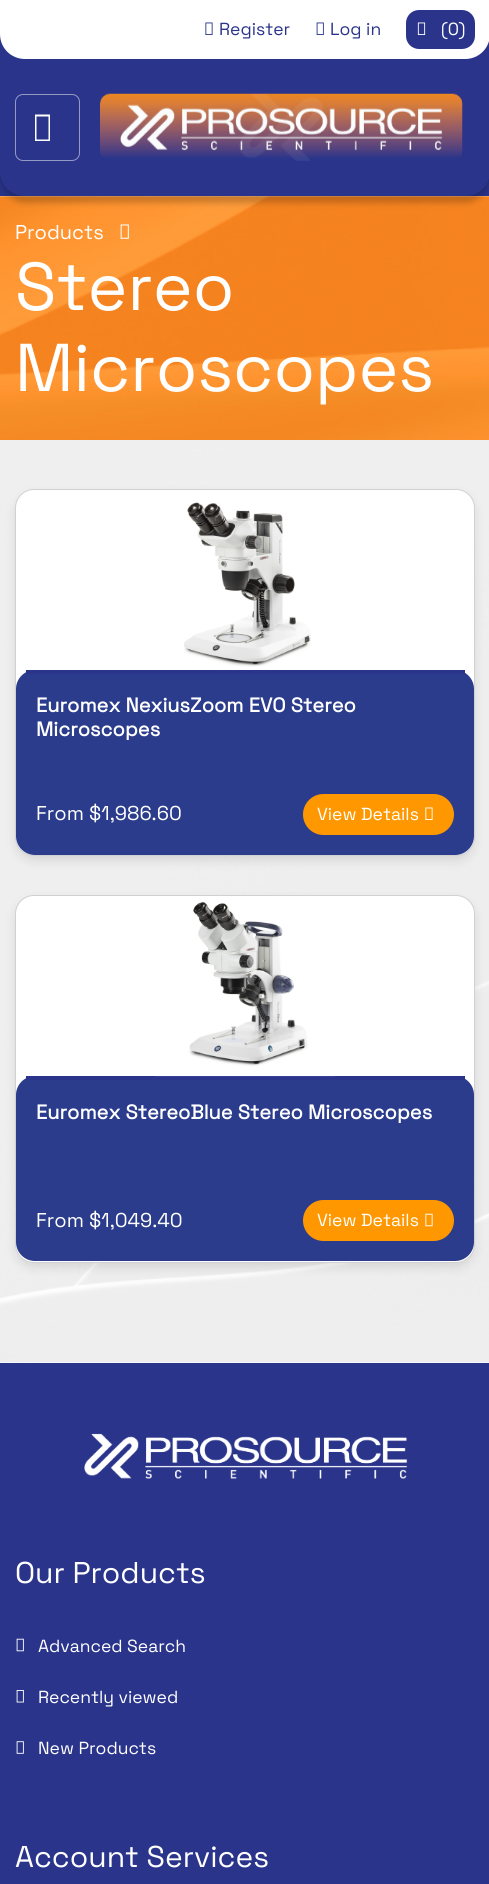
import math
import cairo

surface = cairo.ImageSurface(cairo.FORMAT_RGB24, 489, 1884)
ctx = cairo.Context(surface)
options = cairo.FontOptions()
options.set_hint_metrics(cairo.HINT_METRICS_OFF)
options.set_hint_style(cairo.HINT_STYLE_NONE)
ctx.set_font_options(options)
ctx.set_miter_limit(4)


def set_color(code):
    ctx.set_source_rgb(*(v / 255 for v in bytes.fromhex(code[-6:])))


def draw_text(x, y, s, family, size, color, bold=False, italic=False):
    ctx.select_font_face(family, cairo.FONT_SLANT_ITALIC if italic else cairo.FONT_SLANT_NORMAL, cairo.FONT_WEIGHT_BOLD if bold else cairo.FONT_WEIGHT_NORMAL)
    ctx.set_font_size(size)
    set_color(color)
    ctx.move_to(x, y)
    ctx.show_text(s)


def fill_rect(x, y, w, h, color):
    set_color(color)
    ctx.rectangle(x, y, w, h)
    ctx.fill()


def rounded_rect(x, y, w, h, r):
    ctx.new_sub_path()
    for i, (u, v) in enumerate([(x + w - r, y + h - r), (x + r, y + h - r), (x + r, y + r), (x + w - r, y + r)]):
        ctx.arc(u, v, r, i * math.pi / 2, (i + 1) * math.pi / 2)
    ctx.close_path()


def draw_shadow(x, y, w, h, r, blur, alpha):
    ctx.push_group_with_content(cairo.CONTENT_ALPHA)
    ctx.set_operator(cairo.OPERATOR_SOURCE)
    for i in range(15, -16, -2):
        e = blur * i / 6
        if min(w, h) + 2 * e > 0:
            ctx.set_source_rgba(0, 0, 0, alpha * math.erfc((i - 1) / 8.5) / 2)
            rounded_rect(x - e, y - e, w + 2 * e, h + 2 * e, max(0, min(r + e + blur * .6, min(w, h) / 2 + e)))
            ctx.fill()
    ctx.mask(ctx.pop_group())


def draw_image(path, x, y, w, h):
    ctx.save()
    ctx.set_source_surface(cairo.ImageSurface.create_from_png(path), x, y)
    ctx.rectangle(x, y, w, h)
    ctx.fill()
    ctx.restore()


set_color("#2a348b")
ctx.paint()
set_color("#ffffff")
ctx.new_path()
ctx.move_to(0, 0)
ctx.line_to(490, 0)
ctx.line_to(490, 34)
ctx.curve_to(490, 48, 479, 59, 465, 59)
ctx.line_to(25, 59)
ctx.curve_to(11, 59, 0, 48, 0, 34)
ctx.close_path()
ctx.fill()
draw_image("assets/img1.png", 205, 22, 8, 13)
draw_text(219, 35, "Register", "Space Grotesk Light", 17.5, "#2a348b")
draw_image("assets/img2.png", 316, 22, 8, 13)
draw_text(330, 35, "Log in", "Space Grotesk Light", 17.5, "#2a348b")
rounded_rect(406, 10, 69, 39, 13)
ctx.fill()
draw_image("assets/img3.png", 417, 22, 9, 13)
draw_text(441, 35, "(0)", "Space Grotesk Light", 17.5, "#ffffff")
fill_rect(0, 196, 489, 1167, "#ffffff")
draw_image("assets/img5.png", 0, 196, 489, 244)
set_color("#000000")
draw_shadow(0, 65, 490, 138, 25, 3, 0.2)
set_color("#2a348b")
ctx.new_path()
ctx.move_to(0, 59)
ctx.line_to(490, 59)
ctx.line_to(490, 171)
ctx.curve_to(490, 185, 479, 196, 465, 196)
ctx.line_to(25, 196)
ctx.curve_to(11, 196, 0, 185, 0, 171)
ctx.close_path()
ctx.fill()
rounded_rect(15.5, 94.5, 64, 66, 7.5)
set_color("#959ac5")
ctx.set_line_width(1)
ctx.stroke()
set_color("#ffffff")
ctx.new_path()
ctx.move_to(35, 141)
ctx.line_to(35, 114.5)
ctx.line_to(50, 114.5)
ctx.line_to(50, 141)
ctx.close_path()
ctx.move_to(36.5, 139.5)
ctx.line_to(48.5, 139.5)
ctx.line_to(48.5, 116.5)
ctx.line_to(36.5, 116.5)
ctx.close_path()
ctx.fill()
draw_image("assets/img4.png", 100, 93, 363, 68)
draw_text(15, 239, "Products", "Space Grotesk Light", 20, "#ffffff")
draw_image("assets/img6.png", 120, 224, 9, 15)
draw_text(15, 310, "Stereo", "Space Grotesk Light", 67.5, "#ffffff")
draw_text(15, 391, "Microscopes", "Space Grotesk Light", 67.5, "#ffffff")
draw_image("assets/img7.png", 0, 440, 489, 923)
set_color("#000000")
draw_shadow(15, 494, 460, 367, 19, 5, 0.1)
set_color("#ffffff")
rounded_rect(15, 489, 460, 367, 19)
ctx.fill()
rounded_rect(15.5, 489.5, 459, 366, 18.5)
ctx.set_source_rgba(0, 0, 0, 0.18)
ctx.stroke()
draw_image("assets/img8.png", 184, 502, 127, 165)
set_color("#2a3c8b")
rounded_rect(16, 670, 458, 185, 19)
ctx.fill()
fill_rect(26, 670, 439, 4, "#2a348b")
draw_text(36, 712, "Euromex NexiusZoom EVO Stereo", "Space Grotesk", 20, "#ffffff", bold=True)
draw_text(36, 736, "Microscopes", "Space Grotesk", 20, "#ffffff", bold=True)
draw_text(36, 820, "From $1,986.60", "Space Grotesk Light", 20, "#ffffff")
set_color("#ff9800")
rounded_rect(303, 794, 151, 41, 20.5)
ctx.fill()
draw_text(317, 820, "View Details", "Space Grotesk Light", 17.5, "#ffffff")
draw_image("assets/img9.png", 425, 807, 8, 13)
set_color("#000000")
draw_shadow(15, 900, 460, 368, 19, 5, 0.1)
set_color("#ffffff")
rounded_rect(15, 895, 460, 368, 19)
ctx.fill()
rounded_rect(15.5, 895.5, 459, 367, 18.5)
ctx.set_source_rgba(0, 0, 0, 0.18)
ctx.stroke()
set_color("#2a3c8b")
rounded_rect(16, 1076, 458, 185, 19)
ctx.fill()
fill_rect(26, 1076, 439, 4, "#2a348b")
draw_image("assets/img10.png", 155, 902, 180, 175)
draw_text(36, 1119, "Euromex StereoBlue Stereo Microscopes", "Space Grotesk", 20, "#ffffff", bold=True)
draw_text(36, 1227, "From $1,049.40", "Space Grotesk Light", 20, "#ffffff")
set_color("#ff9800")
rounded_rect(303, 1200, 151, 41, 20.5)
ctx.fill()
draw_text(317, 1226, "View Details", "Space Grotesk Light", 17.5, "#ffffff")
draw_image("assets/img11.png", 425, 1213, 8, 14)
draw_image("assets/img12.png", 84, 1433, 324, 46)
draw_text(15, 1583, "Our Products", "Space Grotesk Light", 30, "#ffffff")
draw_image("assets/img13.png", 16, 1638, 8, 14)
draw_text(38, 1652, "Advanced Search", "Space Grotesk Light", 17.5, "#ffffff")
draw_image("assets/img14.png", 16, 1690, 8, 13)
draw_text(38, 1703, "Recently viewed", "Space Grotesk Light", 17.5, "#ffffff")
draw_image("assets/img15.png", 16, 1741, 8, 13)
draw_text(38, 1754, "New Products", "Space Grotesk Light", 17.5, "#ffffff")
draw_text(15, 1867, "Account Services", "Space Grotesk Light", 30, "#ffffff")
surface.write_to_png("output.png")
